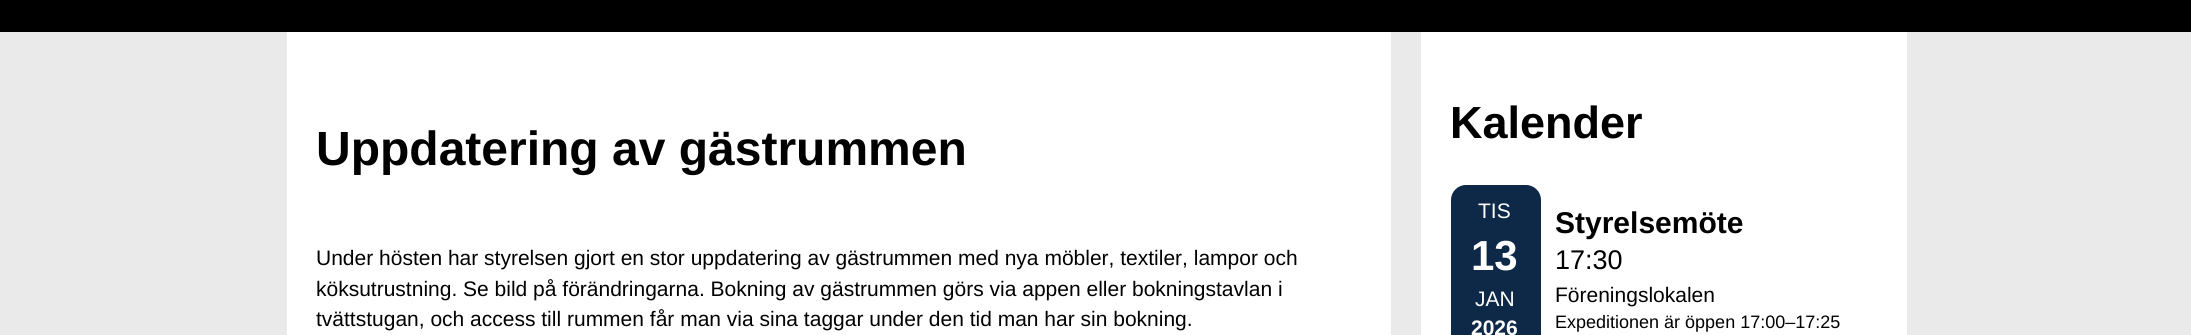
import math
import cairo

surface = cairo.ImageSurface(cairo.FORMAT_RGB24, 2191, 335)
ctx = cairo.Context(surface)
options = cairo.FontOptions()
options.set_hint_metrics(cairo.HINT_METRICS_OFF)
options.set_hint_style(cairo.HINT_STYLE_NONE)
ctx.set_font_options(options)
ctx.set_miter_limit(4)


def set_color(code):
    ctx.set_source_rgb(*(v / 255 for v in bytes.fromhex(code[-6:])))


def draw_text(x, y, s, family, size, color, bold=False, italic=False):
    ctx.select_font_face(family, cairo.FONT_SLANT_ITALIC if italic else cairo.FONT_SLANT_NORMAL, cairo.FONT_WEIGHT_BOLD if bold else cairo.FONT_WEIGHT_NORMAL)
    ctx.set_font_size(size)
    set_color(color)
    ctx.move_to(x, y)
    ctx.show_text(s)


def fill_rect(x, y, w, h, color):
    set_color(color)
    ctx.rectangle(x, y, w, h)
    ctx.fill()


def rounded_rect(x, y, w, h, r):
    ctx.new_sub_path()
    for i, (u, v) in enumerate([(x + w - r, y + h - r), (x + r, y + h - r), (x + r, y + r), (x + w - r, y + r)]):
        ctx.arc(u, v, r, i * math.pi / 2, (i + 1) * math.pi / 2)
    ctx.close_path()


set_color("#000000")
ctx.paint()
fill_rect(0, 32, 2191, 303, "#eaeaea")
fill_rect(287, 32, 1104, 303, "#ffffff")
draw_text(316, 165, "Uppdatering av gästrummen", "Liberation Sans", 48, "#000000", bold=True)
draw_text(316, 265, "Under hösten har styrelsen gjort en stor uppdatering av gästrummen med nya möbler, textiler, lampor och", "Liberation Sans", 21, "#000000")
draw_text(316, 296, "köksutrustning. Se bild på förändringarna. Bokning av gästrummen görs via appen eller bokningstavlan i", "Liberation Sans", 21, "#000000")
draw_text(316, 326, "tvättstugan, och access till rummen får man via sina taggar under den tid man har sin bokning.", "Liberation Sans", 21, "#000000")
fill_rect(1421, 32, 486, 303, "#ffffff")
draw_text(1450, 138, "Kalender", "Liberation Sans", 45, "#000000", bold=True)
set_color("#0d2947")
rounded_rect(1451, 185, 90, 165, 15)
ctx.fill()
draw_text(1478, 218, "TIS", "Liberation Sans", 21, "#ffffff")
draw_text(1471, 270, "13", "Liberation Sans", 42, "#ffffff", bold=True)
draw_text(1475, 306, "JAN", "Liberation Sans", 21, "#ffffff")
draw_text(1471, 335, "2026", "Liberation Sans", 21, "#ffffff", bold=True)
draw_text(1555, 233, "Styrelsemöte", "Liberation Sans", 30, "#000000", bold=True)
draw_text(1555, 269, "17:30", "Liberation Sans", 27, "#000000")
draw_text(1555, 302, "Föreningslokalen", "Liberation Sans", 21, "#000000")
draw_text(1555, 328, "Expeditionen är öppen 17:00–17:25", "Liberation Sans", 18, "#000000")
surface.write_to_png("output.png")
